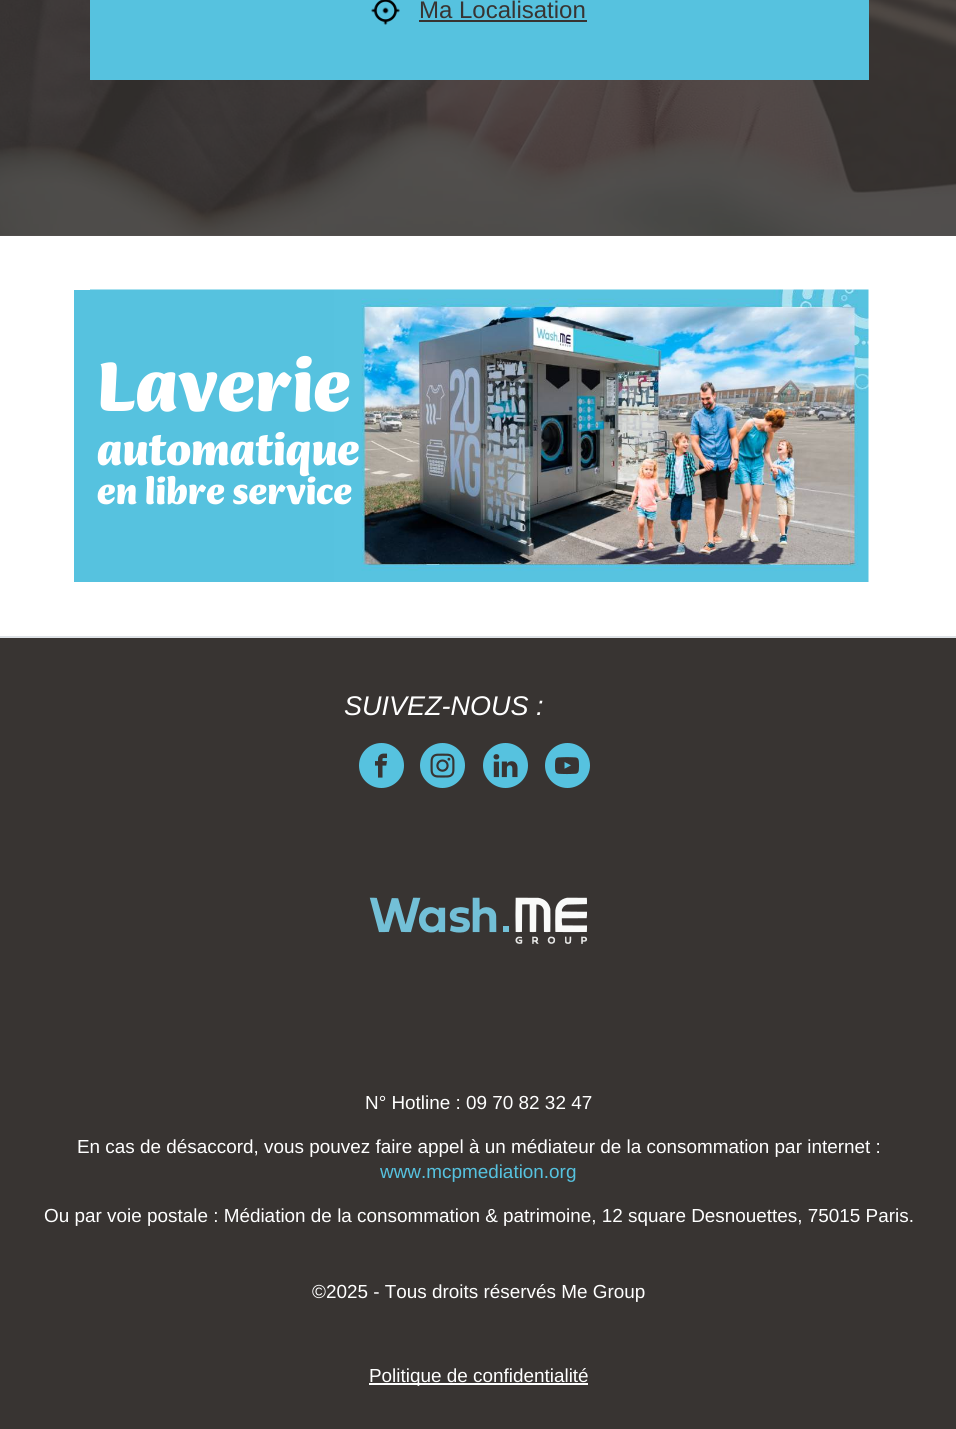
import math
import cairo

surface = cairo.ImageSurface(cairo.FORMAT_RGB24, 956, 1429)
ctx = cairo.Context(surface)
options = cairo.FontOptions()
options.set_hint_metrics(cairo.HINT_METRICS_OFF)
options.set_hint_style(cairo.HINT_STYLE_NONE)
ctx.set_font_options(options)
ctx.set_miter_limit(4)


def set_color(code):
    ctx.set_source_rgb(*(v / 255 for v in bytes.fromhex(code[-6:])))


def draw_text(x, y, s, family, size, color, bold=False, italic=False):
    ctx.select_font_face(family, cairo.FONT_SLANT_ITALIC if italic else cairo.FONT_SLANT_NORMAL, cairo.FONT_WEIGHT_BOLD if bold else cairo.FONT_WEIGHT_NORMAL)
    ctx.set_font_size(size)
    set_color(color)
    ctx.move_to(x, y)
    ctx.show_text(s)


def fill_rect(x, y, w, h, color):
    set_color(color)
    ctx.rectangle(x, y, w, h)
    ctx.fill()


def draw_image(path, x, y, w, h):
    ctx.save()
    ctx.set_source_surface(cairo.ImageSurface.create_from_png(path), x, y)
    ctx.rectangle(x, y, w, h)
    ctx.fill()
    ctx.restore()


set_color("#ffffff")
ctx.paint()
fill_rect(0, 235, 956, 1, "#565251")
draw_image("assets/img1.png", 0, 0, 956, 236)
fill_rect(90, 0, 779, 80, "#56c2df")
draw_image("assets/img2.png", 371, 0, 29, 25)
draw_text(419, 18, "Ma Localisation", "Liberation Sans", 24, "#383432")
fill_rect(419, 20, 168, 2, "#383432")
draw_image("assets/img3.png", 90, 289, 779, 293)
fill_rect(74, 290, 260, 292, "#56c2df")
draw_text(97, 411, "Laverie", "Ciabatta", 75, "#ffffff", bold=True)
draw_text(97, 465, "automatique", "Ciabatta", 45, "#ffffff", bold=True)
draw_text(97, 504, "en libre service", "Ciabatta", 37.5, "#ffffff", bold=True)
fill_rect(0, 636, 956, 2, "#dee2e6")
fill_rect(0, 638, 956, 791, "#383432")
draw_text(344, 715, "SUIVEZ-NOUS :", "Liberation Sans", 27, "#ffffff", italic=True)
set_color("#56c2df")
ctx.new_path()
ctx.arc(381.5, 765.5, 22.5, 0, 2 * math.pi)
ctx.fill()
draw_image("assets/img4.png", 375, 753, 12, 25)
ctx.arc(442.5, 765.5, 22.5, 0, 2 * math.pi)
ctx.fill()
draw_image("assets/img5.png", 430, 753, 25, 25)
ctx.arc(505.5, 765.5, 22.5, 0, 2 * math.pi)
ctx.fill()
draw_image("assets/img6.png", 493, 754, 25, 24)
ctx.arc(567.5, 765.5, 22.5, 0, 2 * math.pi)
ctx.fill()
draw_image("assets/img7.png", 555, 757, 24, 18)
draw_image("assets/img8.png", 369, 897, 219, 47)
draw_text(365, 1109, "N° Hotline : 09 70 82 32 47", "Liberation Sans", 18.9, "#ffffff")
draw_text(77, 1153, "En cas de désaccord, vous pouvez faire appel à un médiateur de la consommation par internet :", "Liberation Sans", 18.9, "#ffffff")
draw_text(380, 1178, "www.mcpmediation.org", "Liberation Sans", 18.9, "#56c2df")
draw_text(44, 1222, "Ou par voie postale : Médiation de la consommation & patrimoine, 12 square Desnouettes, 75015 Paris.", "Liberation Sans", 18.9, "#ffffff")
draw_text(312, 1298, "©2025 - Tous droits réservés Me Group", "Liberation Sans", 18.9, "#ffffff")
fill_rect(369, 1383, 219, 2, "#ffffff")
draw_text(369, 1382, "Politique de confidentialité", "Liberation Sans", 18.9, "#ffffff")
surface.write_to_png("output.png")
